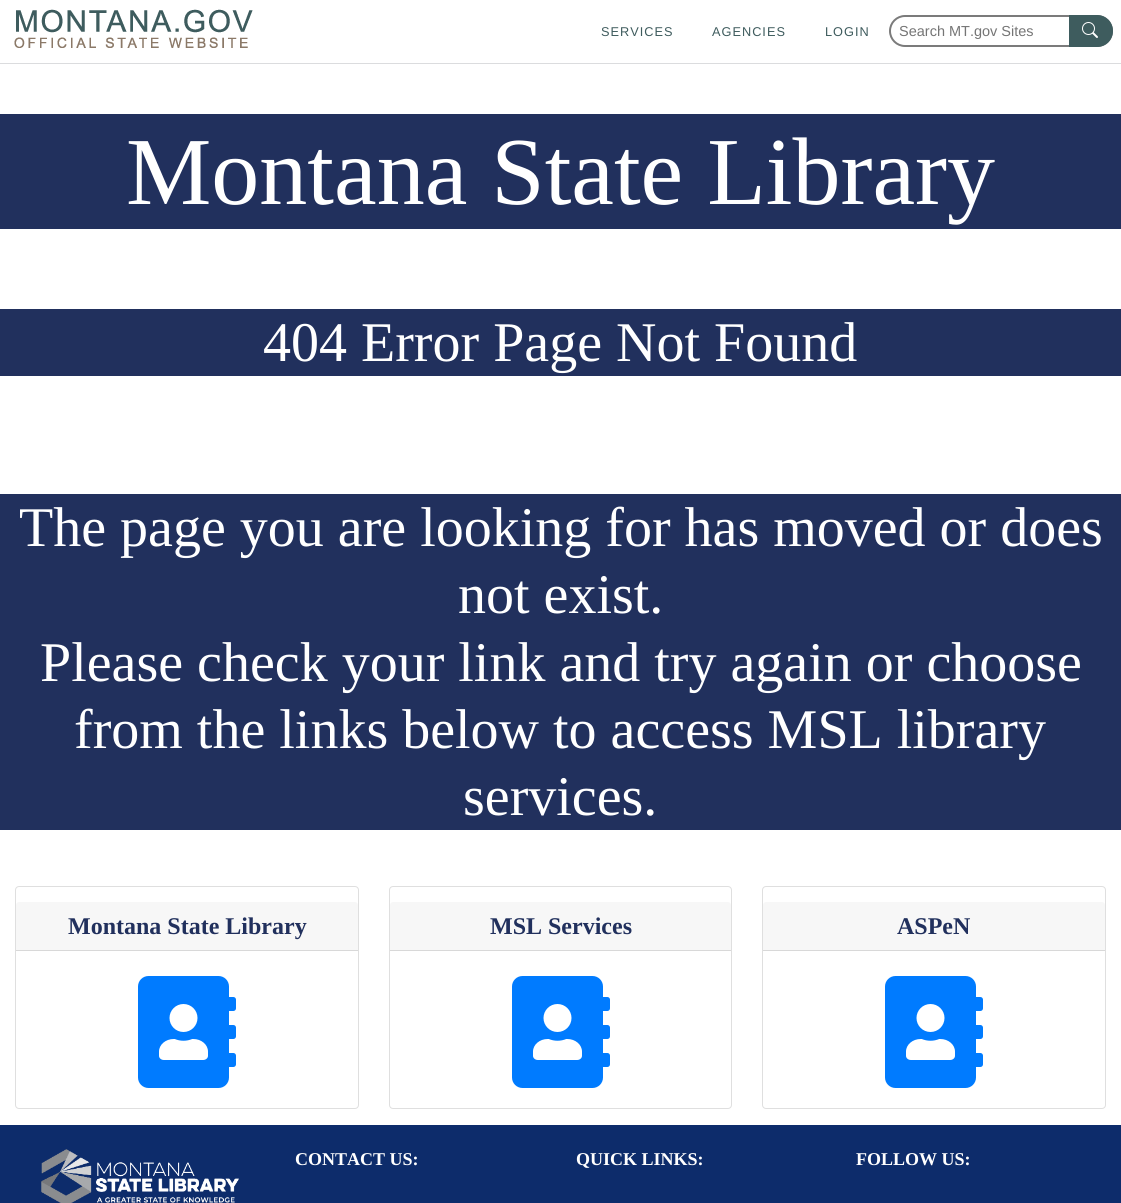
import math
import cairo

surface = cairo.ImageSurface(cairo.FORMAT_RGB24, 1121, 1203)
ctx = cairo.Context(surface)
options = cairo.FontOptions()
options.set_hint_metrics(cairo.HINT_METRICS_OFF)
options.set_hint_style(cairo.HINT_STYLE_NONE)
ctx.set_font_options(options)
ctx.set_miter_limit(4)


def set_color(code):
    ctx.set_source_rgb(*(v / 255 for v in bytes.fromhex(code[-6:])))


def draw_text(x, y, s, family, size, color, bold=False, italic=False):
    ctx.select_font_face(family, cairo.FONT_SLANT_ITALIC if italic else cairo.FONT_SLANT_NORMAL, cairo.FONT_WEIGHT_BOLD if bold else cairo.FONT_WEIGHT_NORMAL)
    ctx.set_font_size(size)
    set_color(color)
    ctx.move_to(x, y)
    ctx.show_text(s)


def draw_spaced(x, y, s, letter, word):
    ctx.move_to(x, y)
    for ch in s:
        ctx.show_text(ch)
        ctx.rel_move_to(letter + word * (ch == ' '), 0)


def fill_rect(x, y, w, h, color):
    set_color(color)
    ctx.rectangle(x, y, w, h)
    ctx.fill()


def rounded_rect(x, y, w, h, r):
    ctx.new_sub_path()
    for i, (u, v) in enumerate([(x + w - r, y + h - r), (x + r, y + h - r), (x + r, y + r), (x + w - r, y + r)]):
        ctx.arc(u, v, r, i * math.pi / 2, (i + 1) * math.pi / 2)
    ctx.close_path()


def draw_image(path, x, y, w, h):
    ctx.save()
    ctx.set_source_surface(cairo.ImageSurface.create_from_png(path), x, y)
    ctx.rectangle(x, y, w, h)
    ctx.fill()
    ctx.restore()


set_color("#ffffff")
ctx.paint()
fill_rect(0, 63, 1121, 1, "#dbdcde")
draw_image("assets/img1.png", 14, 9, 239, 39)
ctx.select_font_face("Liberation Sans")
ctx.set_font_size(12.75)
set_color("#3e5b5d")
draw_spaced(601, 36, "SERVICES", 1, 0)
draw_spaced(712, 36, "AGENCIES", 1, 0)
draw_spaced(825, 36, "LOGIN", 1, 0)
rounded_rect(890, 16, 222, 30, 15)
set_color("#7b7b7b")
ctx.stroke()
draw_text(899, 36, "Search MT.gov Sites", "Liberation Sans", 14.5, "#757575")
set_color("#3e5c5e")
ctx.new_path()
ctx.move_to(1069, 15)
ctx.line_to(1097, 15)
ctx.curve_to(1106, 15, 1113, 22, 1113, 31)
ctx.curve_to(1113, 40, 1106, 47, 1097, 47)
ctx.line_to(1069, 47)
ctx.close_path()
ctx.fill()
draw_image("assets/img2.png", 1082, 22, 16, 16)
fill_rect(0, 114, 1121, 115, "#21305d")
draw_text(126, 204, "Montana State Library", "Liberation Serif", 96, "#ffffff")
fill_rect(0, 309, 1121, 67, "#21305d")
draw_text(263, 361, "404 Error Page Not Found", "Liberation Serif", 56, "#ffffff")
fill_rect(0, 494, 1121, 336, "#21305d")
draw_text(19, 546, "The page you are looking for has moved or does", "Liberation Serif", 56, "#ffffff")
draw_text(458, 613, "not exist.", "Liberation Serif", 56, "#ffffff")
draw_text(40, 681, "Please check your link and try again or choose", "Liberation Serif", 56, "#ffffff")
draw_text(74, 748, "from the links below to access MSL library", "Liberation Serif", 56, "#ffffff")
draw_text(463, 815, "services.", "Liberation Serif", 56, "#ffffff")
rounded_rect(15.5, 886.5, 343, 222, 3.5)
set_color("#dfdfdf")
ctx.set_line_width(1)
ctx.stroke()
set_color("#f7f7f7")
ctx.new_path()
ctx.move_to(19, 902)
ctx.line_to(355, 902)
ctx.curve_to(356.5, 902, 358, 903.5, 358, 905)
ctx.line_to(358, 951)
ctx.line_to(16, 951)
ctx.line_to(16, 905)
ctx.curve_to(16, 903.5, 17.5, 902, 19, 902)
ctx.close_path()
ctx.fill()
fill_rect(16, 950, 342, 1, "#d8d8d8")
draw_text(68, 934, "Montana State Library", "Liberation Serif", 24, "#21305d", bold=True)
draw_image("assets/img3.png", 138, 976, 98, 112)
rounded_rect(389.5, 886.5, 342, 222, 3.5)
set_color("#dfdfdf")
ctx.stroke()
set_color("#f7f7f7")
ctx.new_path()
ctx.move_to(393, 902)
ctx.line_to(728, 902)
ctx.curve_to(729.5, 902, 731, 903.5, 731, 905)
ctx.line_to(731, 951)
ctx.line_to(390, 951)
ctx.line_to(390, 905)
ctx.curve_to(390, 903.5, 391.5, 902, 393, 902)
ctx.close_path()
ctx.fill()
fill_rect(390, 950, 341, 1, "#d8d8d8")
draw_text(490, 934, "MSL Services", "Liberation Serif", 24, "#21305d", bold=True)
draw_image("assets/img3.png", 512, 976, 98, 112)
rounded_rect(762.5, 886.5, 343, 222, 3.5)
set_color("#dfdfdf")
ctx.stroke()
set_color("#f7f7f7")
ctx.new_path()
ctx.move_to(766, 902)
ctx.line_to(1102, 902)
ctx.curve_to(1103.5, 902, 1105, 903.5, 1105, 905)
ctx.line_to(1105, 951)
ctx.line_to(763, 951)
ctx.line_to(763, 905)
ctx.curve_to(763, 903.5, 764.5, 902, 766, 902)
ctx.close_path()
ctx.fill()
fill_rect(763, 950, 342, 1, "#d8d8d8")
draw_text(897, 934, "ASPeN", "Liberation Serif", 24, "#21305d", bold=True)
draw_image("assets/img3.png", 885, 976, 98, 112)
fill_rect(0, 1125, 1121, 78, "#0d2c6b")
draw_image("assets/img4.png", 41, 1149, 198, 54)
draw_text(295, 1165, "CONTACT US:", "Liberation Serif", 18, "#ffffff", bold=True)
draw_text(576, 1165, "QUICK LINKS:", "Liberation Serif", 18, "#ffffff", bold=True)
draw_text(856, 1165, "FOLLOW US:", "Liberation Serif", 18, "#ffffff", bold=True)
surface.write_to_png("output.png")
